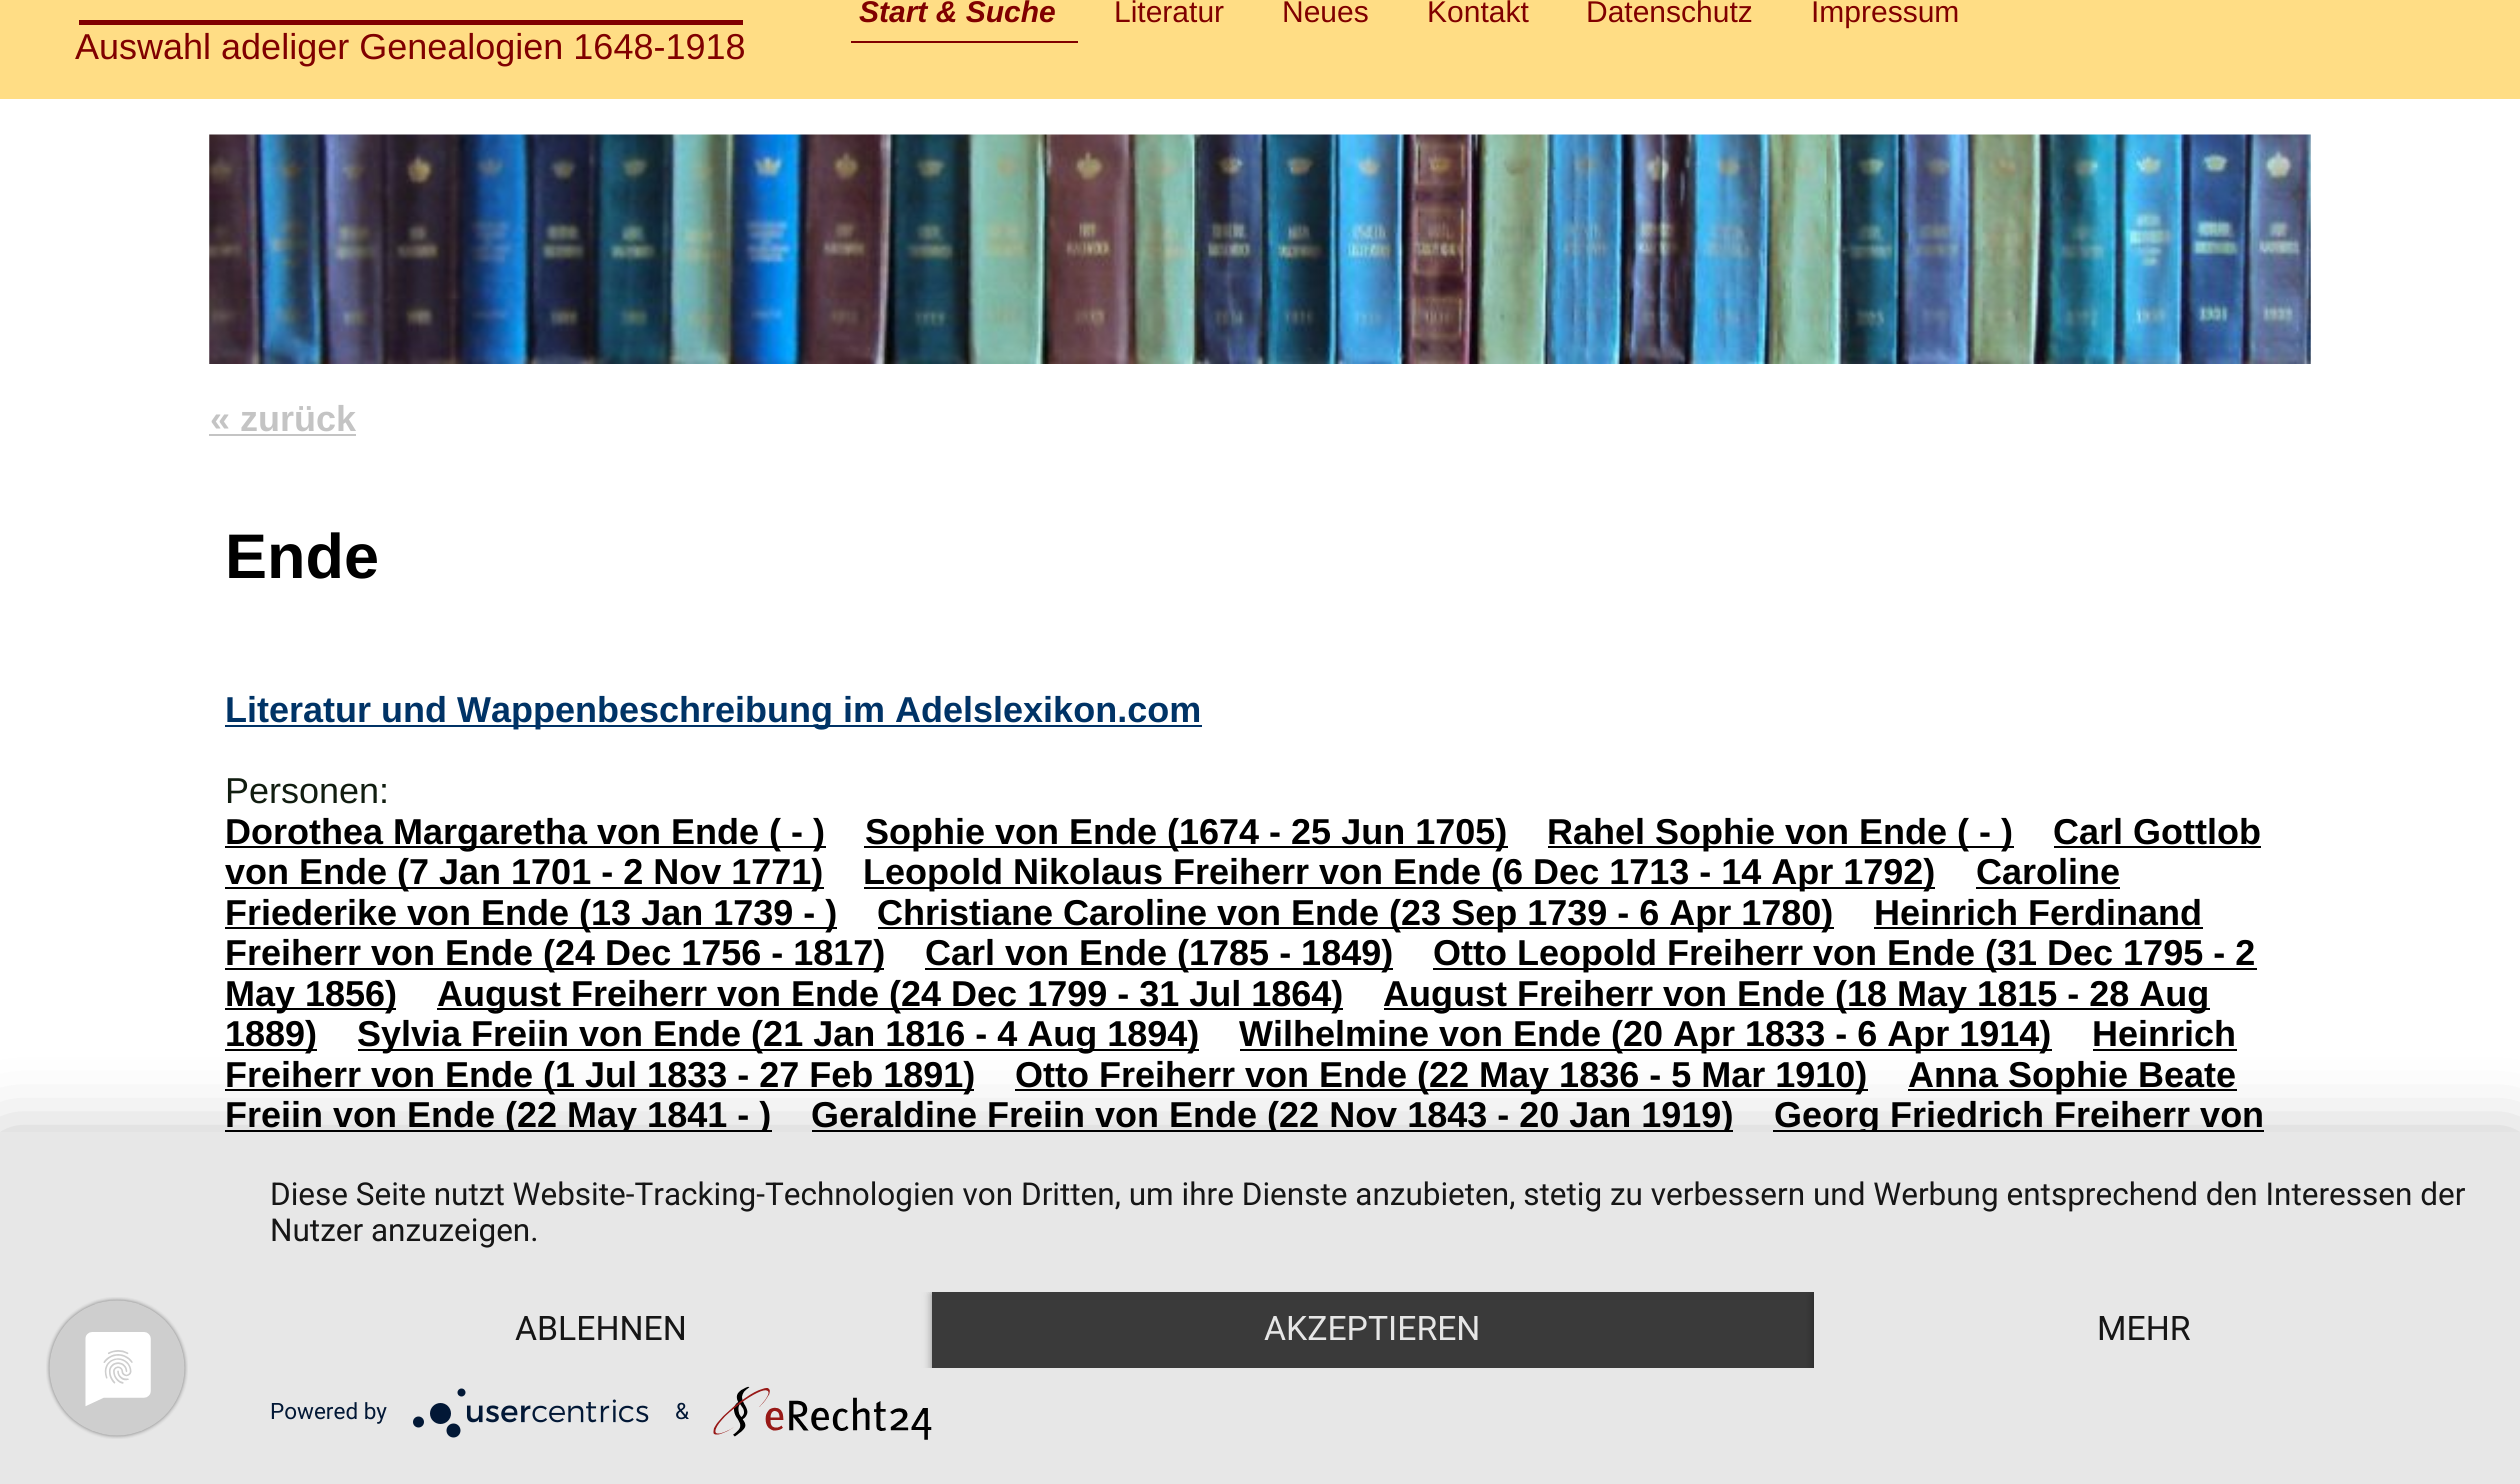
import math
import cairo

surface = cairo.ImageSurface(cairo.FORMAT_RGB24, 2520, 1484)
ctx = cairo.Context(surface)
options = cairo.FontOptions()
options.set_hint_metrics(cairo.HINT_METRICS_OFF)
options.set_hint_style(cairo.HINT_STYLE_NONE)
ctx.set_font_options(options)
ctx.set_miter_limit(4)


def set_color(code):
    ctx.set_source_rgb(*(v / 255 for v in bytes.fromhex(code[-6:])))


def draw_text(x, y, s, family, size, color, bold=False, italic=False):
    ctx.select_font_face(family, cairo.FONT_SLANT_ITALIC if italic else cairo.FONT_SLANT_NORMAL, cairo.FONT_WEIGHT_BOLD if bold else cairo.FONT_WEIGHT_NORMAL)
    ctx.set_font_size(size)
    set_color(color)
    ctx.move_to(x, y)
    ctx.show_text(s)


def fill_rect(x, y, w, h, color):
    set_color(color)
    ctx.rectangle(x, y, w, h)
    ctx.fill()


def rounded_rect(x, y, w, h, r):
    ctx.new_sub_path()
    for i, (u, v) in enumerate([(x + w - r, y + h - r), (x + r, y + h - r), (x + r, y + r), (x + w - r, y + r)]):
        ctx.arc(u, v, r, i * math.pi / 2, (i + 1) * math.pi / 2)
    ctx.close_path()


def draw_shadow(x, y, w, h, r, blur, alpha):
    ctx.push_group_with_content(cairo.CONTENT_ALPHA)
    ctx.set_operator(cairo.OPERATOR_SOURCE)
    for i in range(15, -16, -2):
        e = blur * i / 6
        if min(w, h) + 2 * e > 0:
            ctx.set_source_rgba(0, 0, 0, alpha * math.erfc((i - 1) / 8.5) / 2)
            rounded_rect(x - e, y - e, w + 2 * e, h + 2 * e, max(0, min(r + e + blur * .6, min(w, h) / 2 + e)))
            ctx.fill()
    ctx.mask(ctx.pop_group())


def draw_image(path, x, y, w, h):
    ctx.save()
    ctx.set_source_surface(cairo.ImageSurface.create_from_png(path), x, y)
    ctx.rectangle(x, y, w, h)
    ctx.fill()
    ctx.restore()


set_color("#ffffff")
ctx.paint()
fill_rect(0, 0, 2520, 99, "#ffdd85")
fill_rect(851, 41, 227, 2, "#800000")
draw_text(859, 22, "Start & Suche", "Liberation Sans", 30, "#800000", bold=True, italic=True)
draw_text(1114, 22, "Literatur", "Liberation Sans", 30, "#800000")
draw_text(1282, 22, "Neues", "Liberation Sans", 30, "#800000")
draw_text(1427, 22, "Kontakt", "Liberation Sans", 30, "#800000")
draw_text(1586, 22, "Datenschutz", "Liberation Sans", 30, "#800000")
draw_text(1811, 22, "Impressum", "Liberation Sans", 30, "#800000")
fill_rect(79, 20, 664, 5, "#800000")
draw_text(75, 59, "Auswahl adeliger Genealogien 1648-1918", "Liberation Sans", 36, "#800000")
draw_image("assets/img1.png", 209, 134, 2102, 230)
draw_text(210, 431, "« zurück", "Liberation Sans", 36, "#c4c4c4", bold=True)
fill_rect(209, 434, 147, 2, "#c4c4c4")
draw_text(225, 578, "Ende", "Liberation Sans", 63, "#000000", bold=True)
fill_rect(225, 725, 977, 2, "#003366")
draw_text(225, 722, "Literatur und Wappenbeschreibung im Adelslexikon.com", "Liberation Sans", 36, "#003366", bold=True)
draw_text(225, 803, "Personen:", "Liberation Sans", 36, "#111d10")
fill_rect(225, 846, 601, 2, "#000000")
draw_text(225, 844, "Dorothea Margaretha von Ende ( - )", "Liberation Sans", 36, "#000000", bold=True)
fill_rect(864, 846, 644, 2, "#000000")
draw_text(865, 844, "Sophie von Ende (1674 - 25 Jun 1705)", "Liberation Sans", 36, "#000000", bold=True)
fill_rect(1548, 846, 466, 2, "#000000")
draw_text(1547, 844, "Rahel Sophie von Ende ( - )", "Liberation Sans", 36, "#000000", bold=True)
draw_text(2053, 844, "Carl Gottlob", "Liberation Sans", 36, "#000000", bold=True)
fill_rect(2054, 846, 207, 2, "#000000")
fill_rect(225, 887, 599, 2, "#000000")
draw_text(225, 884, "von Ende (7 Jan 1701 - 2 Nov 1771)", "Liberation Sans", 36, "#000000", bold=True)
fill_rect(864, 887, 1071, 2, "#000000")
draw_text(863, 884, "Leopold Nikolaus Freiherr von Ende (6 Dec 1713 - 14 Apr 1792)", "Liberation Sans", 36, "#000000", bold=True)
draw_text(1976, 884, "Caroline", "Liberation Sans", 36, "#000000", bold=True)
fill_rect(1976, 887, 144, 2, "#000000")
fill_rect(225, 927, 612, 2, "#000000")
draw_text(225, 925, "Friederike von Ende (13 Jan 1739 - )", "Liberation Sans", 36, "#000000", bold=True)
fill_rect(878, 927, 956, 2, "#000000")
draw_text(877, 925, "Christiane Caroline von Ende (23 Sep 1739 - 6 Apr 1780)", "Liberation Sans", 36, "#000000", bold=True)
draw_text(1874, 925, "Heinrich Ferdinand", "Liberation Sans", 36, "#000000", bold=True)
fill_rect(1874, 927, 329, 2, "#000000")
fill_rect(225, 968, 659, 2, "#000000")
draw_text(225, 965, "Freiherr von Ende (24 Dec 1756 - 1817)", "Liberation Sans", 36, "#000000", bold=True)
fill_rect(925, 968, 468, 2, "#000000")
draw_text(925, 965, "Carl von Ende (1785 - 1849)", "Liberation Sans", 36, "#000000", bold=True)
fill_rect(1433, 968, 824, 2, "#000000")
draw_text(1433, 965, "Otto Leopold Freiherr von Ende (31 Dec 1795 - 2", "Liberation Sans", 36, "#000000", bold=True)
fill_rect(225, 1008, 171, 2, "#000000")
draw_text(225, 1006, "May 1856)", "Liberation Sans", 36, "#000000", bold=True)
fill_rect(437, 1008, 906, 2, "#000000")
draw_text(437, 1006, "August Freiherr von Ende (24 Dec 1799 - 31 Jul 1864)", "Liberation Sans", 36, "#000000", bold=True)
fill_rect(1384, 1008, 826, 2, "#000000")
draw_text(1383, 1006, "August Freiherr von Ende (18 May 1815 - 28 Aug", "Liberation Sans", 36, "#000000", bold=True)
fill_rect(225, 1049, 92, 2, "#000000")
draw_text(225, 1046, "1889)", "Liberation Sans", 36, "#000000", bold=True)
fill_rect(358, 1049, 841, 2, "#000000")
draw_text(357, 1046, "Sylvia Freiin von Ende (21 Jan 1816 - 4 Aug 1894)", "Liberation Sans", 36, "#000000", bold=True)
fill_rect(1240, 1049, 812, 2, "#000000")
draw_text(1239, 1046, "Wilhelmine von Ende (20 Apr 1833 - 6 Apr 1914)", "Liberation Sans", 36, "#000000", bold=True)
draw_text(2092, 1046, "Heinrich", "Liberation Sans", 36, "#000000", bold=True)
fill_rect(2093, 1049, 144, 2, "#000000")
fill_rect(225, 1089, 749, 2, "#000000")
draw_text(225, 1087, "Freiherr von Ende (1 Jul 1833 - 27 Feb 1891)", "Liberation Sans", 36, "#000000", bold=True)
fill_rect(1015, 1089, 853, 2, "#000000")
draw_text(1015, 1087, "Otto Freiherr von Ende (22 May 1836 - 5 Mar 1910)", "Liberation Sans", 36, "#000000", bold=True)
fill_rect(1908, 1089, 329, 2, "#000000")
draw_text(1908, 1087, "Anna Sophie Beate", "Liberation Sans", 36, "#000000", bold=True)
fill_rect(225, 1130, 547, 2, "#000000")
draw_text(225, 1127, "Freiin von Ende (22 May 1841 - )", "Liberation Sans", 36, "#000000", bold=True)
fill_rect(812, 1130, 921, 2, "#000000")
draw_text(811, 1127, "Geraldine Freiin von Ende (22 Nov 1843 - 20 Jan 1919)", "Liberation Sans", 36, "#000000", bold=True)
fill_rect(1773, 1130, 491, 2, "#000000")
draw_text(1774, 1127, "Georg Friedrich Freiherr von", "Liberation Sans", 36, "#000000", bold=True)
set_color("#000000")
draw_shadow(0, 1145, 2520, 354, 0, 40.5, 0.3)
fill_rect(0, 1132, 2520, 352, "#e7e7e7")
draw_image("assets/img2.png", 46, 1297, 142, 142)
draw_text(270, 1205, "Diese Seite nutzt Website-Tracking-Technologien von Dritten, um ihre Dienste anzubieten, stetig zu verbessern und Werbung entsprechend den Interessen der", "Roboto", 31.5, "#161616")
draw_text(270, 1241, "Nutzer anzuzeigen.", "Roboto", 31.5, "#161616")
draw_text(515, 1340, "ABLEHNEN", "Roboto", 33.75, "#161616")
ctx.save()
ctx.rectangle(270, 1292, 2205, 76)
ctx.clip()
set_color("#000000")
draw_shadow(932, 1294, 882, 76, 0, 4.5, 0.4)
ctx.restore()
fill_rect(932, 1292, 882, 76, "#3a3a3a")
draw_text(1264, 1340, "AKZEPTIEREN", "Roboto", 33.75, "#e6e6e6")
ctx.save()
ctx.rectangle(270, 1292, 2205, 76)
ctx.clip()
set_color("#000000")
draw_shadow(1814, 1294, 661, 76, 0, 4.5, 0.4)
ctx.restore()
fill_rect(1814, 1292, 661, 76, "#e7e7e7")
draw_text(2097, 1340, "MEHR", "Roboto", 33.75, "#161616")
draw_text(270, 1419, "Powered by", "Roboto", 22.5, "#021836")
draw_image("assets/img3.png", 413, 1388, 236, 50)
draw_text(675, 1419, "&", "Roboto", 22.5, "#021836")
draw_image("assets/img4.png", 713, 1386, 219, 54)
surface.write_to_png("output.png")
